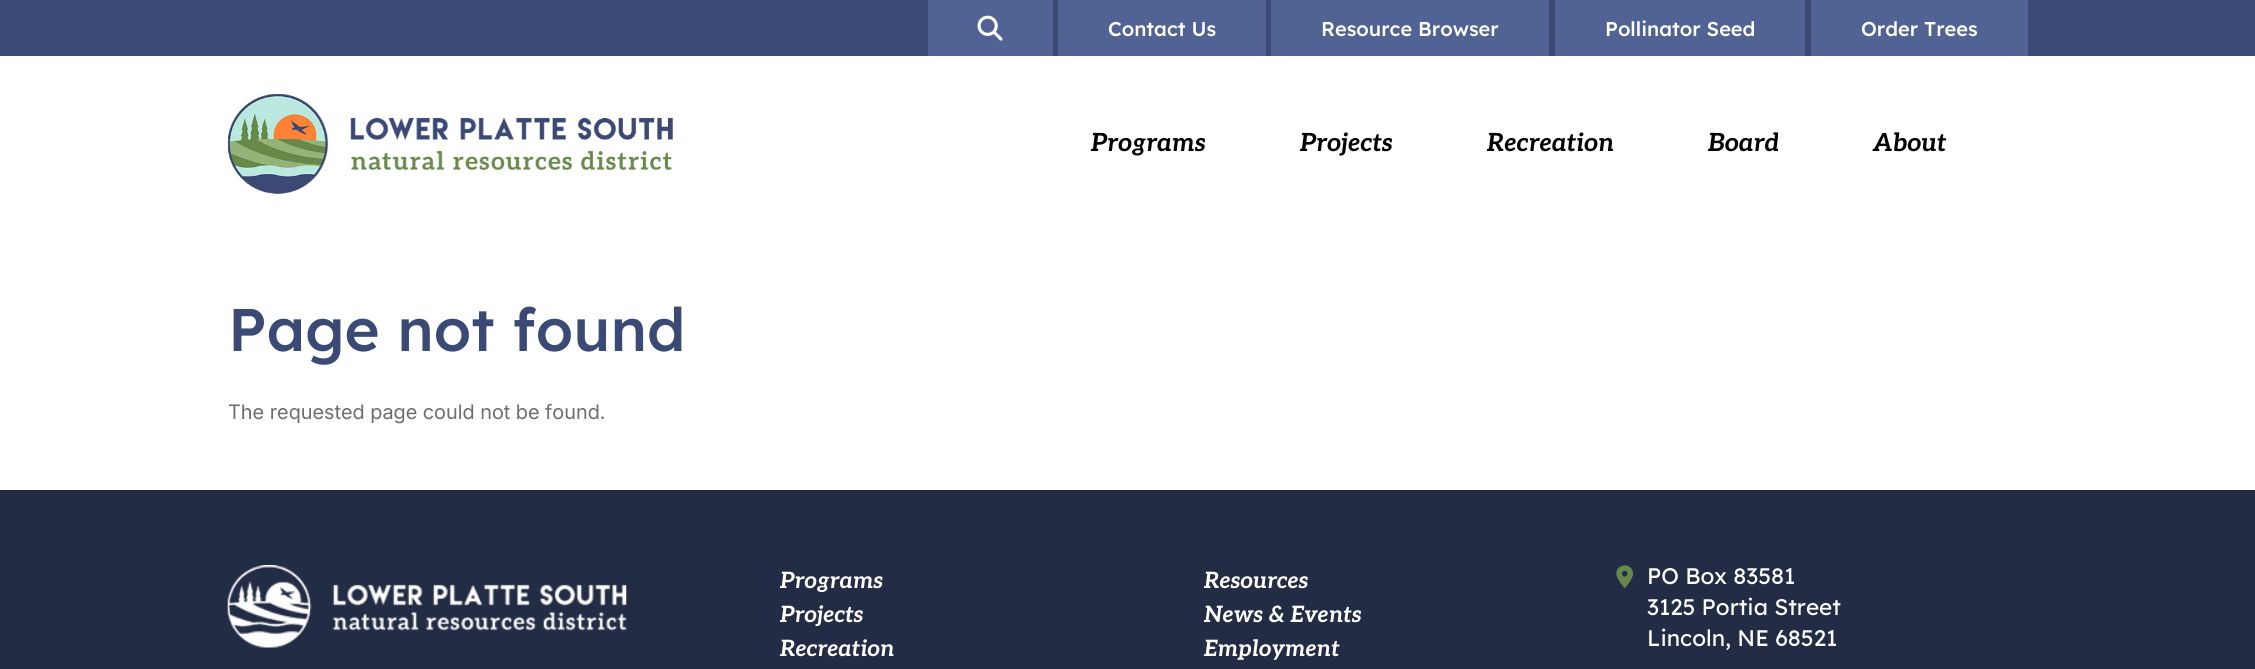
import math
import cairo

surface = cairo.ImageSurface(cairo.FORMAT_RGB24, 2255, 669)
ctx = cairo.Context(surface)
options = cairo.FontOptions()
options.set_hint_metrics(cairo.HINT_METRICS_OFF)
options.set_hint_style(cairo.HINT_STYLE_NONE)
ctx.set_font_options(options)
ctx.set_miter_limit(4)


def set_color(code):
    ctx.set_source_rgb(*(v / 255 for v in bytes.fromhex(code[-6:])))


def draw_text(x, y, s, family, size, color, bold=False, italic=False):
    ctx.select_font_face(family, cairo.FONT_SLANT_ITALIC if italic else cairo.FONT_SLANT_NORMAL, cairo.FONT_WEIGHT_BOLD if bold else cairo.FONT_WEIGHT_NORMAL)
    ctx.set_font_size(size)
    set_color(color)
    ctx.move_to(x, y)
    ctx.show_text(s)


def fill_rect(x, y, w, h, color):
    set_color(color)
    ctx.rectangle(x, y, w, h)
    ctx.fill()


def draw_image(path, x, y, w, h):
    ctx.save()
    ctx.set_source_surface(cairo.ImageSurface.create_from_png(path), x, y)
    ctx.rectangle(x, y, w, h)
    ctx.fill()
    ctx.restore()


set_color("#ffffff")
ctx.paint()
fill_rect(0, 0, 2255, 56, "#3a4a75")
fill_rect(928, 0, 125, 56, "#516395")
draw_image("assets/img1.png", 977, 15, 26, 26)
fill_rect(1058, 0, 208, 56, "#516395")
draw_text(1108, 36, "Contact Us", "Lexend Medium", 20, "#ffffff")
fill_rect(1271, 0, 278, 56, "#516395")
draw_text(1321, 36, "Resource Browser", "Lexend Medium", 20, "#ffffff")
fill_rect(1555, 0, 250, 56, "#516395")
draw_text(1605, 36, "Pollinator Seed", "Lexend Medium", 20, "#ffffff")
fill_rect(1811, 0, 217, 56, "#516395")
draw_text(1861, 36, "Order Trees", "Lexend Medium", 20, "#ffffff")
draw_image("assets/img2.png", 228, 94, 445, 100)
draw_text(1091, 151, "Programs", "Aleo", 25, "#000000", bold=True, italic=True)
draw_text(1300, 151, "Projects", "Aleo", 25, "#000000", bold=True, italic=True)
draw_text(1487, 151, "Recreation", "Aleo", 25, "#000000", bold=True, italic=True)
draw_text(1708, 151, "Board", "Aleo", 25, "#000000", bold=True, italic=True)
draw_text(1873, 151, "About", "Aleo", 25, "#000000", bold=True, italic=True)
draw_text(228, 351, "Page not found", "Lexend Medium", 60, "#3a4a75")
draw_text(228, 419, "The requested page could not be found.", "Inter", 20, "#6d6d6d")
fill_rect(0, 490, 2255, 179, "#222c45")
draw_image("assets/img3.png", 227, 565, 400, 83)
draw_text(780, 588, "Programs", "Aleo", 22.5, "#ffffff", bold=True, italic=True)
draw_text(780, 622, "Projects", "Aleo", 22.5, "#ffffff", bold=True, italic=True)
draw_text(780, 656, "Recreation", "Aleo", 22.5, "#ffffff", bold=True, italic=True)
draw_text(1204, 588, "Resources", "Aleo", 22.5, "#ffffff", bold=True, italic=True)
draw_text(1204, 622, "News & Events", "Aleo", 22.5, "#ffffff", bold=True, italic=True)
draw_text(1204, 656, "Employment", "Aleo", 22.5, "#ffffff", bold=True, italic=True)
draw_image("assets/img4.png", 1616, 565, 18, 23)
draw_text(1647, 584, "PO Box 83581", "Lexend", 22.5, "#ffffff")
draw_text(1647, 615, "3125 Portia Street", "Lexend", 22.5, "#ffffff")
draw_text(1647, 646, "Lincoln, NE 68521", "Lexend", 22.5, "#ffffff")
surface.write_to_png("output.png")
